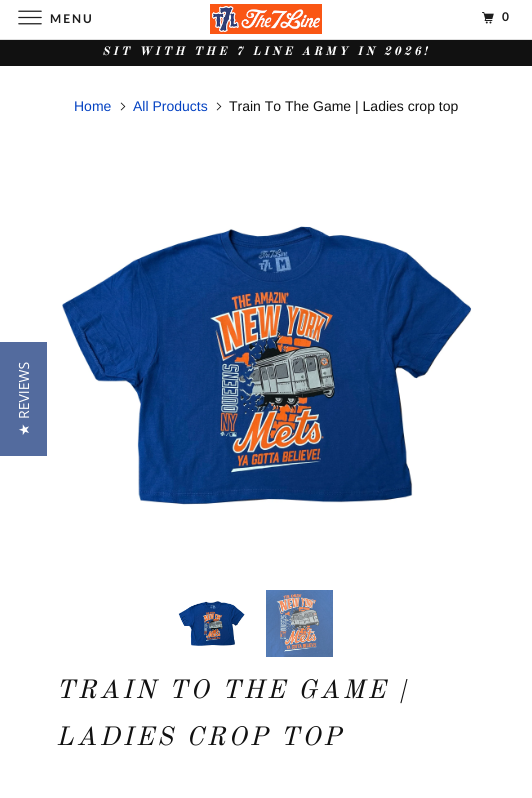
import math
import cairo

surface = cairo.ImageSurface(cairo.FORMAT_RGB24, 532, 798)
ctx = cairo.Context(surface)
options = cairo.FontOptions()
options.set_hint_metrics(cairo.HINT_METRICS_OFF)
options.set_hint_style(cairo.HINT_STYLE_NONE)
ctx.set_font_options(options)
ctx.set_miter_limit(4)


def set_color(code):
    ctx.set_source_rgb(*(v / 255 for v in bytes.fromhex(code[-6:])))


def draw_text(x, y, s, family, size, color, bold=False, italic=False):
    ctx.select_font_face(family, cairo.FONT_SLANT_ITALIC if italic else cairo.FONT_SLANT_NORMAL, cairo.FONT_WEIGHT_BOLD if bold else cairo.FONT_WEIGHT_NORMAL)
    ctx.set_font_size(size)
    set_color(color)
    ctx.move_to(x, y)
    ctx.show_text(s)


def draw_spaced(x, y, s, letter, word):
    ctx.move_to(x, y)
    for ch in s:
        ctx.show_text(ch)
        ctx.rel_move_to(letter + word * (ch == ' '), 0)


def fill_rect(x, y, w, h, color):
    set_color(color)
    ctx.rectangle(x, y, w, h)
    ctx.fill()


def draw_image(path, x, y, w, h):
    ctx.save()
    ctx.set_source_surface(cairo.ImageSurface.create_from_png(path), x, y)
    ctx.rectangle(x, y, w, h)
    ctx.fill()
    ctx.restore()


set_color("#ffffff")
ctx.paint()
fill_rect(0, 39, 532, 1, "#dfdfdf")
draw_image("assets/img1.png", 18, 10, 24, 15)
ctx.select_font_face("Lato", cairo.FONT_SLANT_NORMAL, cairo.FONT_WEIGHT_BOLD)
ctx.set_font_size(12)
set_color("#1d1d1d")
draw_spaced(50, 23, "MENU", 2, 0)
draw_image("assets/img2.png", 210, 4, 112, 30)
draw_image("assets/img3.png", 482, 12, 12, 12)
draw_spaced(502, 21, "0", 2, 0)
fill_rect(0, 342, 47, 114, "#536b9e")
ctx.save()
ctx.translate(29, 419)
ctx.rotate(-90 * math.pi / 180)
draw_text(0, 0, "REVIEWS", "Open Sans", 14, "#ffffff")
ctx.restore()
ctx.save()
ctx.translate(29, 436)
ctx.rotate(-90 * math.pi / 180)
draw_text(0, 0, "★", "DejaVu Sans", 14, "#ffffff")
ctx.restore()
fill_rect(0, 40, 532, 26, "#111111")
ctx.select_font_face("Old Standard TT", cairo.FONT_SLANT_ITALIC, cairo.FONT_WEIGHT_BOLD)
ctx.set_font_size(12)
set_color("#ffffff")
draw_spaced(102, 55, "SIT WITH THE 7 LINE ARMY IN 2026!", 3, 0)
draw_text(74, 111, "Home", "Liberation Sans", 14, "#0442c2")
draw_image("assets/img4.png", 120, 102, 6, 9)
draw_text(133, 111, "All Products", "Liberation Sans", 14, "#0442c2")
draw_image("assets/img4.png", 216, 102, 6, 9)
draw_text(229, 111, "Train To The Game | Ladies crop top", "Liberation Sans", 14, "#111111")
draw_image("assets/img5.png", 62, 226, 410, 279)
draw_image("assets/img6.png", 178, 601, 67, 45)
draw_image("assets/img7.png", 266, 590, 67, 67)
ctx.select_font_face("Old Standard TT", cairo.FONT_SLANT_ITALIC)
ctx.set_font_size(26)
draw_spaced(56, 698, "TRAIN TO THE GAME |", 3, 0)
draw_spaced(56, 745, "LADIES CROP TOP", 3, 0)
surface.write_to_png("output.png")
